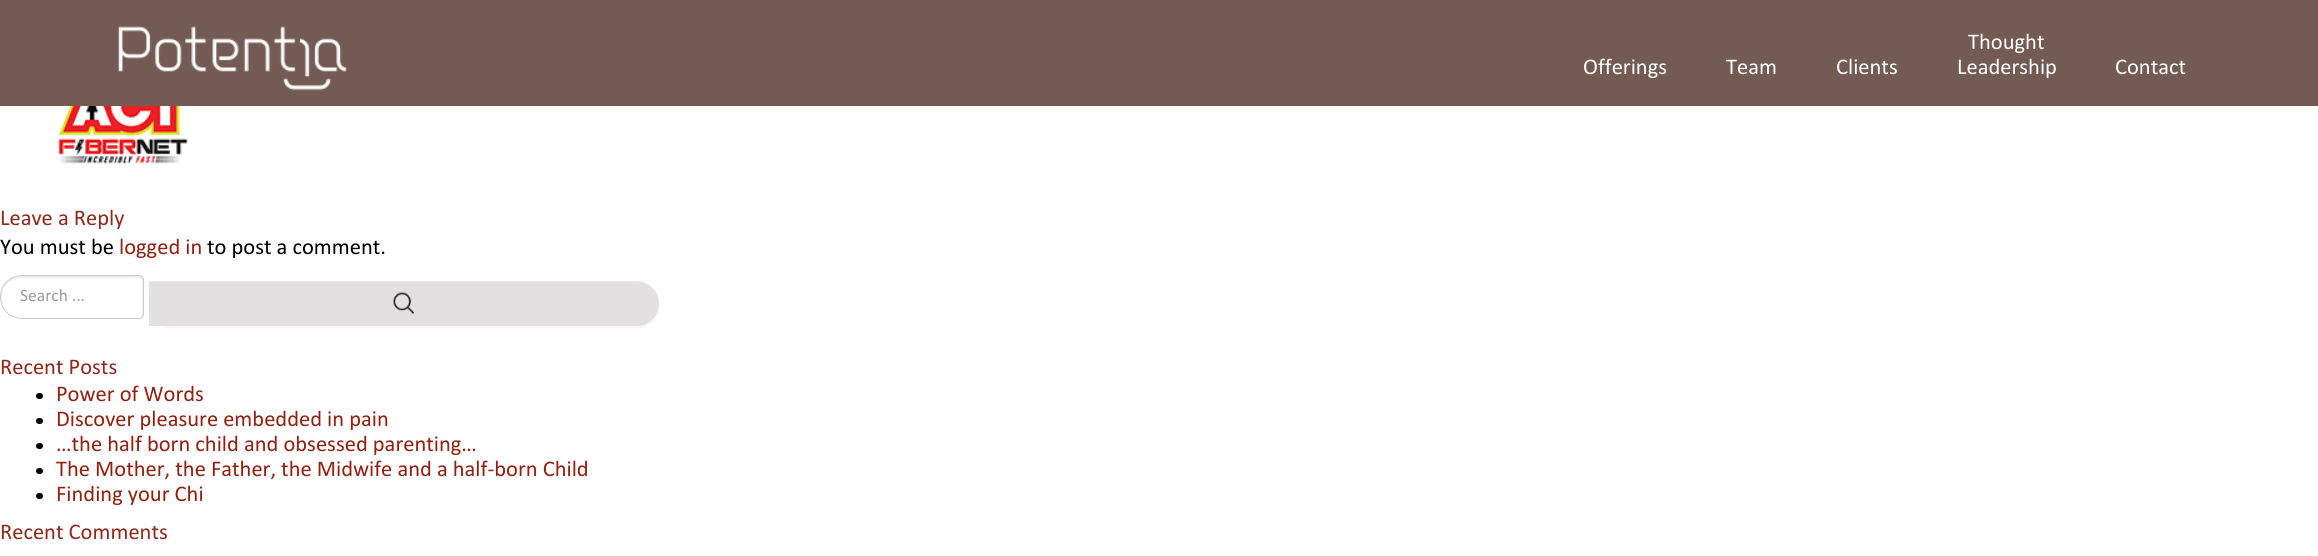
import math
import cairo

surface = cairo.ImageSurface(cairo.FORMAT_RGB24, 2318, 556)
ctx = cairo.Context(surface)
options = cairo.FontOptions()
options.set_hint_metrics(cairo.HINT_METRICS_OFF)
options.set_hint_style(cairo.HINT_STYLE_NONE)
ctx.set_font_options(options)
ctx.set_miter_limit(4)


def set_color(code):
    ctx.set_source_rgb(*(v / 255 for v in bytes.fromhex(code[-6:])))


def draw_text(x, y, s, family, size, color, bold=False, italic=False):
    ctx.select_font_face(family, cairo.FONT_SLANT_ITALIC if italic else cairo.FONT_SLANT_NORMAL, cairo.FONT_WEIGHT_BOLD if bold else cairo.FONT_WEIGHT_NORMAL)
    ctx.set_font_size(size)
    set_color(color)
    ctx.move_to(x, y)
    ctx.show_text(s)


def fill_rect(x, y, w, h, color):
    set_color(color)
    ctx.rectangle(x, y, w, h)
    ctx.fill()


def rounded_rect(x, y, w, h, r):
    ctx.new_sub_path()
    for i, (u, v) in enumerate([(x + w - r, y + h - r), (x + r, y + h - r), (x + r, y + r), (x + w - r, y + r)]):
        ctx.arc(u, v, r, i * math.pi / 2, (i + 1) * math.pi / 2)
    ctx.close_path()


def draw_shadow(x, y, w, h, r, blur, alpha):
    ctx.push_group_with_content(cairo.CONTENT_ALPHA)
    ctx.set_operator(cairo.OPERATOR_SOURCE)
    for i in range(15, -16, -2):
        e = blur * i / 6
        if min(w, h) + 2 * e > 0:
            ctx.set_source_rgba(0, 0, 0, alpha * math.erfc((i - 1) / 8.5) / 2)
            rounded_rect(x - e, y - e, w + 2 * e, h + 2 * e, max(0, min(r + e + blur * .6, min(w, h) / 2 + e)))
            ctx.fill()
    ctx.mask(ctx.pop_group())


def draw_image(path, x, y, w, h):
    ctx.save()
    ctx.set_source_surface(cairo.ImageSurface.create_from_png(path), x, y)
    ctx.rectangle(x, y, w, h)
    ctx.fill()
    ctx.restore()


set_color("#ffffff")
ctx.paint()
fill_rect(0, 0, 2318, 106, "#735b53")
draw_image("assets/img1.png", 118, 26, 229, 65)
draw_text(1583, 74, "Offerings", "Calibri", 22.5, "#ffffff")
draw_text(1726, 74, "Team", "Calibri", 22.5, "#ffffff")
draw_text(1836, 74, "Clients", "Calibri", 22.5, "#ffffff")
draw_text(1968, 49, "Thought", "Calibri", 22.5, "#ffffff")
draw_text(1957, 74, "Leadership", "Calibri", 22.5, "#ffffff")
draw_text(2115, 74, "Contact", "Calibri", 22.5, "#ffffff")
draw_image("assets/img2.png", 57, 106, 133, 59)
draw_text(0, 225, "Leave a Reply", "Calibri", 22.5, "#8e291b")
draw_text(0, 254, "You must be", "Calibri", 22.5, "#000000")
draw_text(119, 254, "logged in", "Calibri", 22.5, "#92200f")
draw_text(207, 254, "to post a comment.", "Calibri", 22.5, "#000000")
set_color("#ececec")
ctx.new_path()
ctx.move_to(22, 278)
ctx.line_to(120, 278)
ctx.curve_to(134, 278, 139, 277, 141, 279)
ctx.curve_to(143, 281, 142, 286, 142, 298)
ctx.curve_to(142, 310, 143, 315, 141, 318)
ctx.curve_to(142, 317, 143, 316, 143, 315)
ctx.line_to(143, 279)
ctx.curve_to(143, 277, 142, 276, 140, 276)
ctx.line_to(22, 276)
ctx.curve_to(10, 276, 1, 285, 1, 297)
ctx.curve_to(1, 301, 2, 304, 4, 307)
ctx.curve_to(-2, 295, 4, 278, 22, 278)
ctx.close_path()
ctx.fill()
ctx.new_path()
ctx.move_to(22, 275.5)
ctx.line_to(139, 275.5)
ctx.curve_to(141.5, 275.5, 143.5, 277.5, 143.5, 280)
ctx.line_to(143.5, 314)
ctx.curve_to(143.5, 316.5, 141.5, 318.5, 139, 318.5)
ctx.line_to(22, 318.5)
ctx.curve_to(10, 318.5, 0.5, 309, 0.5, 297)
ctx.curve_to(0.5, 285, 10, 275.5, 22, 275.5)
ctx.close_path()
set_color("#cccccc")
ctx.set_line_width(1)
ctx.stroke()
draw_text(20, 301, "Search ...", "Calibri", 17.5, "#999999")
set_color("#000000")
draw_shadow(149, 283, 510, 45, 22.5, 1, 0.05)
set_color("#e2e0e1")
ctx.new_path()
ctx.move_to(149, 281)
ctx.line_to(636.5, 281)
ctx.curve_to(649, 281, 659, 291, 659, 303.5)
ctx.curve_to(659, 316, 649, 326, 636.5, 326)
ctx.line_to(149, 326)
ctx.close_path()
ctx.fill()
ctx.set_source_rgba(1, 1, 1, 0.2)
ctx.new_path()
ctx.move_to(149, 282)
ctx.line_to(636, 282)
ctx.curve_to(649, 282, 659, 293, 659, 304)
ctx.curve_to(659, 292, 649, 281, 636, 281)
ctx.line_to(149, 281)
ctx.close_path()
ctx.fill()
draw_image("assets/img3.png", 393, 292, 21, 22)
draw_text(0, 374, "Recent Posts", "Calibri", 22.5, "#8e291b")
set_color("#000000")
rounded_rect(36, 393, 7, 6, 3)
ctx.fill()
draw_text(56, 401, "Power of Words", "Calibri", 22.5, "#92200f")
set_color("#000000")
rounded_rect(36, 418, 7, 6, 3)
ctx.fill()
draw_text(56, 426, "Discover pleasure embedded in pain", "Calibri", 22.5, "#92200f")
set_color("#000000")
rounded_rect(36, 443, 7, 6, 3)
ctx.fill()
draw_text(56, 451, "…the half born child and obsessed parenting…", "Calibri", 22.5, "#92200f")
set_color("#000000")
rounded_rect(36, 468, 7, 6, 3)
ctx.fill()
draw_text(56, 476, "The Mother, the Father, the Midwife and a half-born Child", "Calibri", 22.5, "#92200f")
set_color("#000000")
rounded_rect(36, 493, 7, 6, 3)
ctx.fill()
draw_text(56, 501, "Finding your Chi", "Calibri", 22.5, "#92200f")
draw_text(0, 539, "Recent Comments", "Calibri", 22.5, "#8e291b")
surface.write_to_png("output.png")
